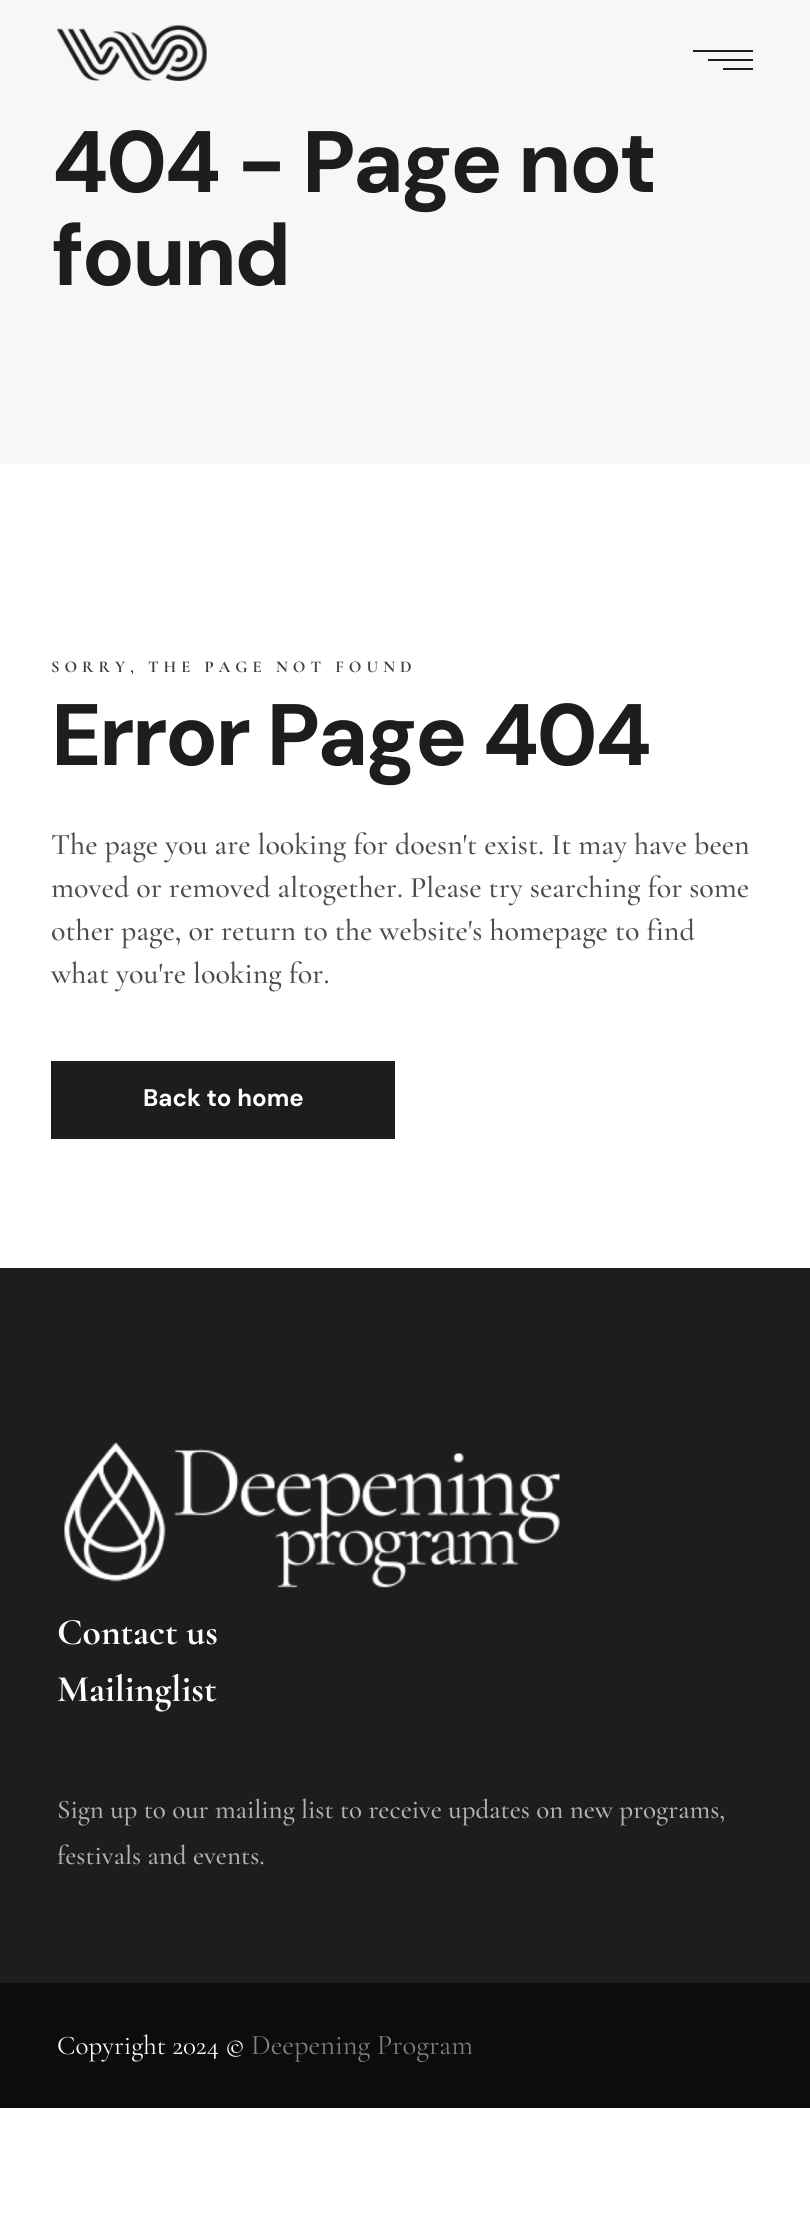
import math
import cairo

surface = cairo.ImageSurface(cairo.FORMAT_RGB24, 810, 2238)
ctx = cairo.Context(surface)
options = cairo.FontOptions()
options.set_hint_metrics(cairo.HINT_METRICS_OFF)
options.set_hint_style(cairo.HINT_STYLE_NONE)
ctx.set_font_options(options)
ctx.set_miter_limit(4)


def set_color(code):
    ctx.set_source_rgb(*(v / 255 for v in bytes.fromhex(code[-6:])))


def draw_text(x, y, s, family, size, color, bold=False, italic=False):
    ctx.select_font_face(family, cairo.FONT_SLANT_ITALIC if italic else cairo.FONT_SLANT_NORMAL, cairo.FONT_WEIGHT_BOLD if bold else cairo.FONT_WEIGHT_NORMAL)
    ctx.set_font_size(size)
    set_color(color)
    ctx.move_to(x, y)
    ctx.show_text(s)


def draw_spaced(x, y, s, letter, word):
    ctx.move_to(x, y)
    for ch in s:
        ctx.show_text(ch)
        ctx.rel_move_to(letter + word * (ch == ' '), 0)


def fill_rect(x, y, w, h, color):
    set_color(color)
    ctx.rectangle(x, y, w, h)
    ctx.fill()


def draw_image(path, x, y, w, h):
    ctx.save()
    ctx.set_source_surface(cairo.ImageSurface.create_from_png(path), x, y)
    ctx.rectangle(x, y, w, h)
    ctx.fill()
    ctx.restore()


set_color("#ffffff")
ctx.paint()
fill_rect(0, 0, 810, 464, "#f7f7f7")
draw_image("assets/img1.png", 57, 25, 150, 56)
fill_rect(693, 50, 60, 2, "#1d1d1f")
fill_rect(708, 59, 45, 2, "#1d1d1f")
fill_rect(723, 68, 30, 2, "#1d1d1f")
ctx.select_font_face("DM Sans", cairo.FONT_SLANT_NORMAL, cairo.FONT_WEIGHT_BOLD)
ctx.set_font_size(87)
draw_spaced(52, 192, "404 - Page not", -2.6, 0)
draw_spaced(52, 285, "found", -2.6, 0)
ctx.select_font_face("Cormorant Garamond", cairo.FONT_SLANT_NORMAL, cairo.FONT_WEIGHT_BOLD)
ctx.set_font_size(16.5)
set_color("#404040")
draw_spaced(51, 672, "SORRY, THE PAGE NOT FOUND", 4.95, 0.5)
ctx.select_font_face("DM Sans", cairo.FONT_SLANT_NORMAL, cairo.FONT_WEIGHT_BOLD)
ctx.set_font_size(87)
set_color("#1d1d1f")
draw_spaced(51, 765, "Error Page 404", -2.6, 0)
draw_text(51, 854, "The page you are looking for doesn't exist. It may have been", "Cormorant Garamond Medium", 30, "#4c4c4c")
draw_text(51, 897, "moved or removed altogether. Please try searching for some", "Cormorant Garamond Medium", 30, "#4c4c4c")
draw_text(51, 940, "other page, or return to the website's homepage to find", "Cormorant Garamond Medium", 30, "#4c4c4c")
draw_text(51, 983, "what you're looking for.", "Cormorant Garamond Medium", 30, "#4c4c4c")
fill_rect(51, 1061, 344, 78, "#1d1d1f")
draw_text(143, 1106, "Back to home", "DM Sans", 24, "#ffffff", bold=True)
fill_rect(0, 1268, 810, 715, "#1d1d1f")
draw_image("assets/img2.png", 64, 1442, 496, 146)
draw_text(57, 1644, "Contact us", "Cormorant Garamond", 37.5, "#ffffff", bold=True)
draw_text(57, 1701, "Mailinglist", "Cormorant Garamond", 37.5, "#ffffff", bold=True)
draw_text(57, 1818, "Sign up to our mailing list to receive updates on new programs,", "Cormorant Garamond Medium", 27, "#b2b2b2")
draw_text(57, 1864, "festivals and events.", "Cormorant Garamond Medium", 27, "#b2b2b2")
fill_rect(0, 1983, 810, 125, "#0c0c0d")
draw_text(57, 2054, "Copyright 2024 ©", "Cormorant Garamond", 27, "#ffffff")
draw_text(251, 2054, "Deepening Program", "Cormorant Garamond", 28.5, "#808080")
surface.write_to_png("output.png")
